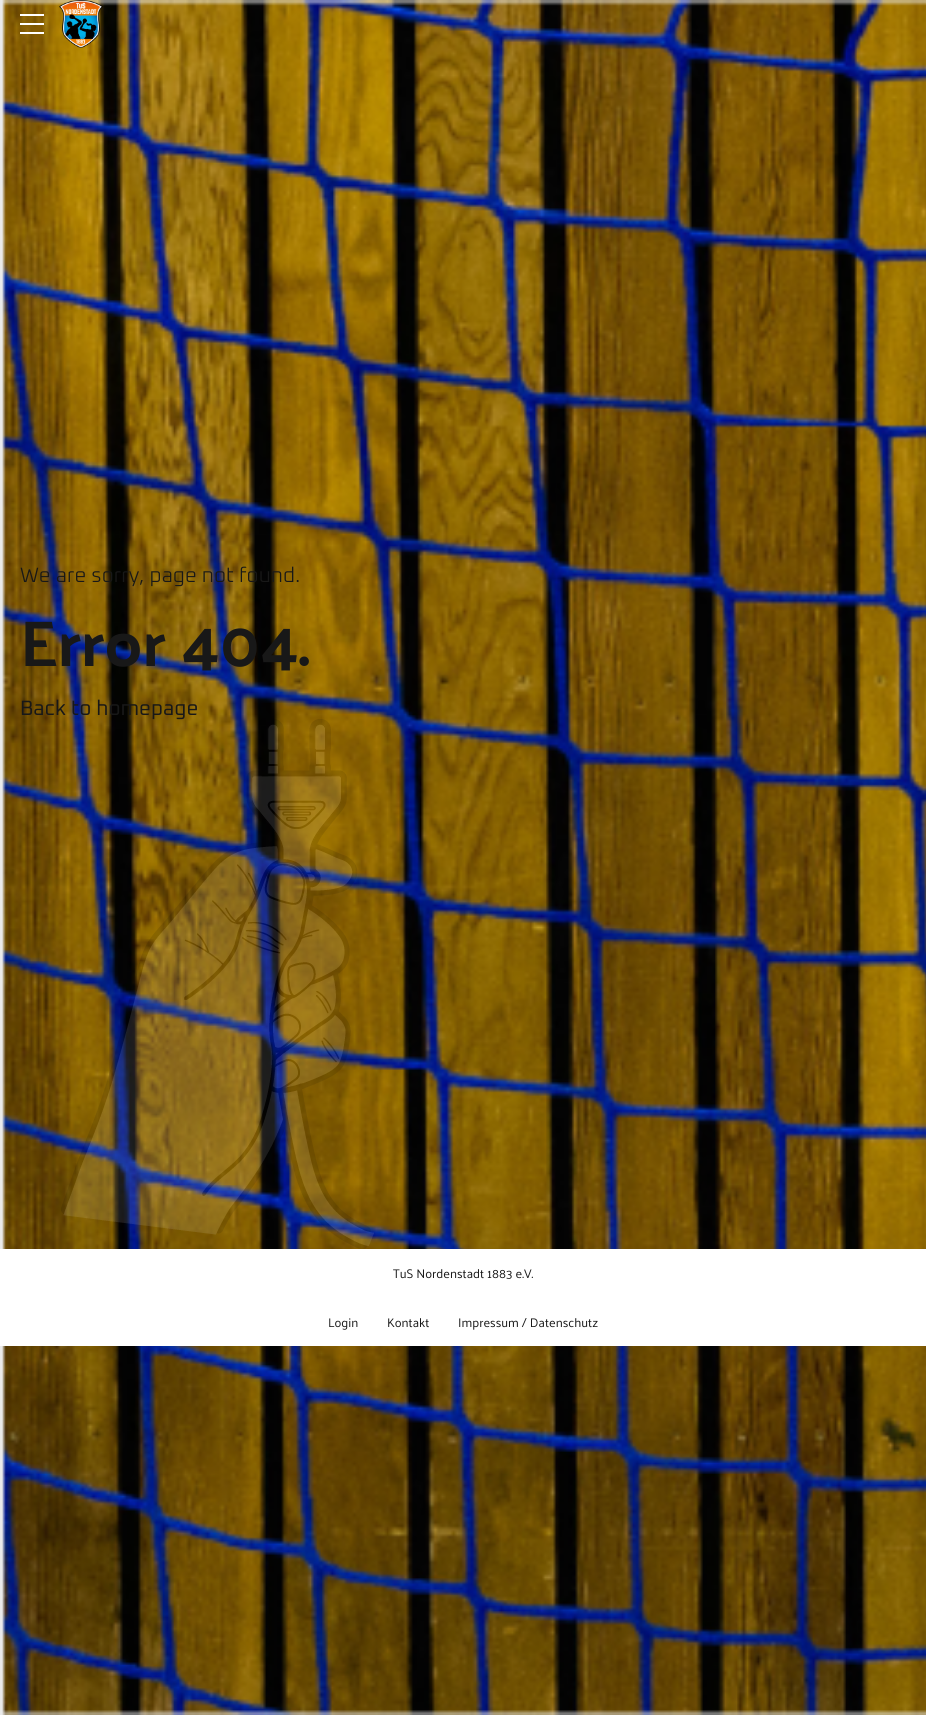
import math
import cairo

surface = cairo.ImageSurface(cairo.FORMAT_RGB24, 926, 1715)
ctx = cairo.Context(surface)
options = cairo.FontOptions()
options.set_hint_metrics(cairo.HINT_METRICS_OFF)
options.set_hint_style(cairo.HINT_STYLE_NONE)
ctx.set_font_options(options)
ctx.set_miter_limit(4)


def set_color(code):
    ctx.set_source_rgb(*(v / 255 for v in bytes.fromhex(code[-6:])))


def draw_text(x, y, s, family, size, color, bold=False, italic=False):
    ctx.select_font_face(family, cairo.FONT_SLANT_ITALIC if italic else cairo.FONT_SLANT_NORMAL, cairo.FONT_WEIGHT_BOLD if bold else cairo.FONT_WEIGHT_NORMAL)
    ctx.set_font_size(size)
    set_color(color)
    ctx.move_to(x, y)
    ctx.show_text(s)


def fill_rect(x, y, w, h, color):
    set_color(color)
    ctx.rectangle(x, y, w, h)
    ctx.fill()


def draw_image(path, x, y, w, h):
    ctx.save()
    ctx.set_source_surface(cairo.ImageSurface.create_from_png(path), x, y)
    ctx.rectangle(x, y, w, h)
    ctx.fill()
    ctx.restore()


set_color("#eaeaea")
ctx.paint()
draw_image("assets/img1.png", 2, 0, 924, 1715)
fill_rect(20, 14, 24, 2, "#ffffff")
fill_rect(20, 23, 24, 2, "#ffffff")
fill_rect(20, 32, 24, 2, "#ffffff")
draw_image("assets/img2.png", 59, 0, 44, 48)
draw_image("assets/img3.png", 61, 719, 313, 530)
draw_text(20, 582, "We are sorry, page not found.", "Oxanium Light", 20.75, "#181818")
draw_text(20, 666, "Error 404.", "Palanquin", 65, "#181818", bold=True)
draw_text(20, 715, "Back to homepage", "Oxanium", 20.75, "#181818")
fill_rect(0, 1249, 926, 97, "#ffffff")
draw_text(393, 1278, "TuS Nordenstadt 1883 e.V.", "Palanquin", 12.6, "#181818")
draw_text(328, 1327, "Login", "Palanquin", 12.6, "#181818")
draw_text(387, 1327, "Kontakt", "Palanquin", 12.6, "#181818")
draw_text(458, 1327, "Impressum / Datenschutz", "Palanquin", 12.6, "#181818")
surface.write_to_png("output.png")
